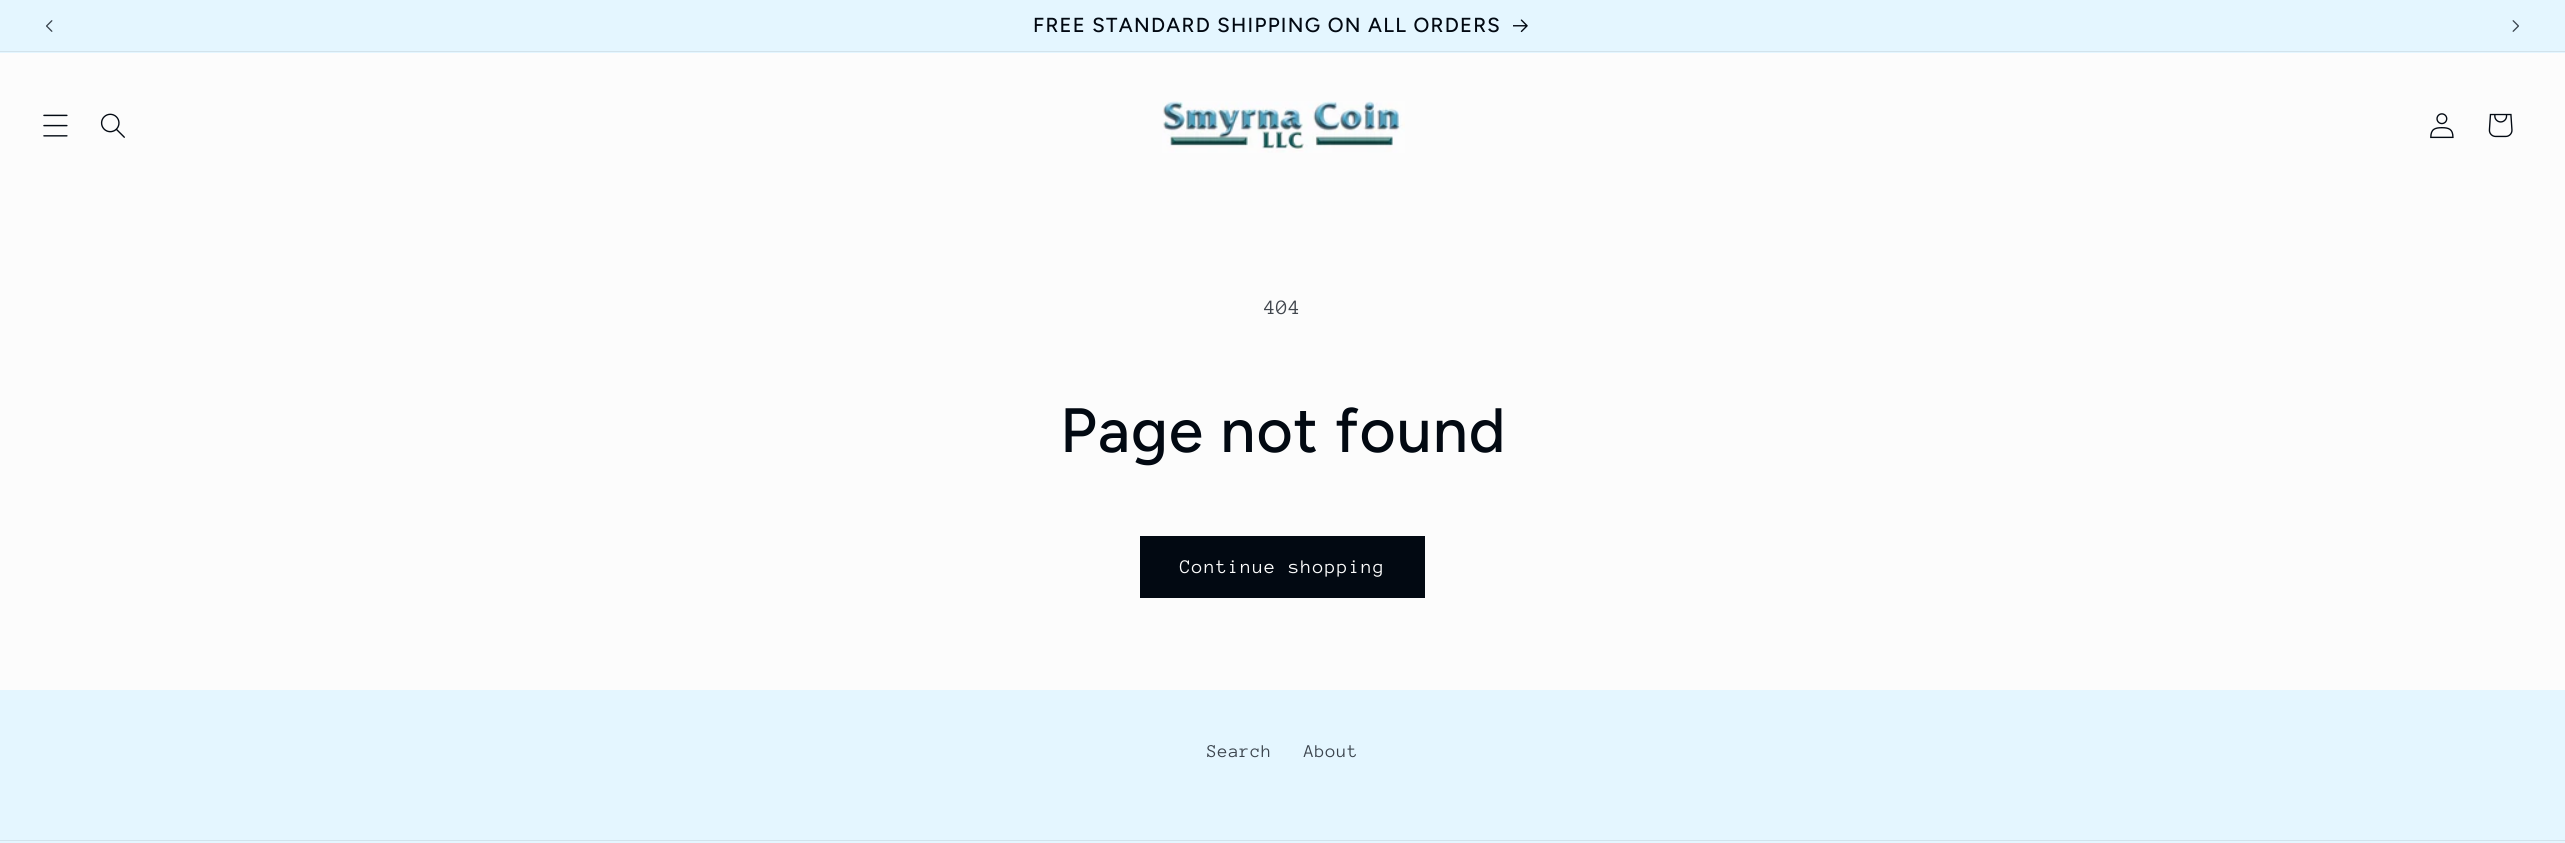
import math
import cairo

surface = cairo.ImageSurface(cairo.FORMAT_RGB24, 2565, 843)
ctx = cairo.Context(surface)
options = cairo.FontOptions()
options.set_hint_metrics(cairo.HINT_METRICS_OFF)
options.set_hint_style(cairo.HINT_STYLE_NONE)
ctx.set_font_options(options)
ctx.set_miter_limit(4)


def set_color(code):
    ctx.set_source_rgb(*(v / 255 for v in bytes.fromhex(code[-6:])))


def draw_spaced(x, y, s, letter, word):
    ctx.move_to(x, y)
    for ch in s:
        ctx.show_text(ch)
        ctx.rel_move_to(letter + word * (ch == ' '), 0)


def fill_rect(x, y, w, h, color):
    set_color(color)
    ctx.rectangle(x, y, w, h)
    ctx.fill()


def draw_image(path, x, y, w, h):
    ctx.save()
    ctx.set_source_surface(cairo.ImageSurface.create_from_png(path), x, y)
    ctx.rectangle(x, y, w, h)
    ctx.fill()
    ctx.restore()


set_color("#fcfcfc")
ctx.paint()
fill_rect(0, 0, 2565, 53, "#e4f6ff")
fill_rect(0, 51, 2565, 1, "#d2e3ec")
draw_image("assets/img1.png", 46, 20, 7, 12)
ctx.select_font_face("Figtree Medium")
ctx.set_font_size(20.3)
set_color("#020912")
draw_spaced(1033, 32, "FREE STANDARD SHIPPING ON ALL ORDERS", 1.3, 0)
draw_image("assets/img2.png", 1513, 19, 15, 14)
draw_image("assets/img3.png", 2512, 20, 7, 12)
draw_image("assets/img4.png", 43, 114, 25, 23)
draw_image("assets/img5.png", 100, 113, 25, 25)
draw_image("assets/img6.png", 1162, 101, 243, 52)
draw_image("assets/img7.png", 2430, 113, 24, 26)
draw_image("assets/img8.png", 2488, 113, 25, 25)
ctx.select_font_face("Anonymous Pro")
ctx.set_font_size(21)
set_color("#41464d")
draw_spaced(1264, 314, "404", 0.75, 0)
ctx.select_font_face("Figtree Medium")
ctx.set_font_size(62.5)
set_color("#020912")
draw_spaced(1060, 452, "Page not found", 1, 0)
fill_rect(1140, 536, 285, 62, "#020912")
ctx.select_font_face("Anonymous Pro")
ctx.set_font_size(19.75)
set_color("#fcfcfc")
draw_spaced(1180, 573, "Continue shopping", 1.3, 0)
fill_rect(0, 690, 2565, 153, "#e4f6ff")
ctx.set_font_size(18.5)
set_color("#3b444d")
draw_spaced(1207, 757, "Search", 0.75, 0)
draw_spaced(1304, 757, "About", 0.75, 0)
fill_rect(0, 840, 2565, 1, "#d2e3ec")
surface.write_to_png("output.png")
